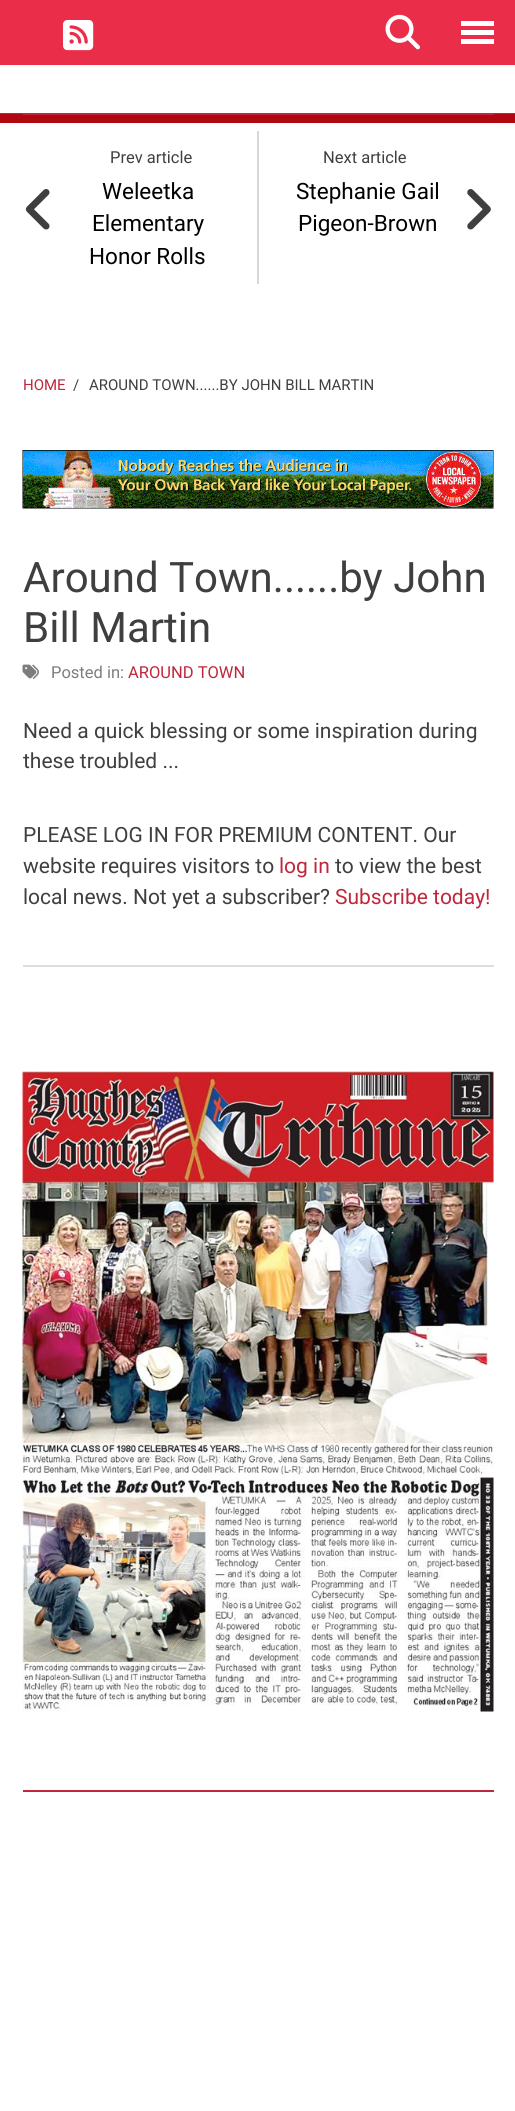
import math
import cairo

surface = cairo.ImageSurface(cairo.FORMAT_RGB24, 515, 2111)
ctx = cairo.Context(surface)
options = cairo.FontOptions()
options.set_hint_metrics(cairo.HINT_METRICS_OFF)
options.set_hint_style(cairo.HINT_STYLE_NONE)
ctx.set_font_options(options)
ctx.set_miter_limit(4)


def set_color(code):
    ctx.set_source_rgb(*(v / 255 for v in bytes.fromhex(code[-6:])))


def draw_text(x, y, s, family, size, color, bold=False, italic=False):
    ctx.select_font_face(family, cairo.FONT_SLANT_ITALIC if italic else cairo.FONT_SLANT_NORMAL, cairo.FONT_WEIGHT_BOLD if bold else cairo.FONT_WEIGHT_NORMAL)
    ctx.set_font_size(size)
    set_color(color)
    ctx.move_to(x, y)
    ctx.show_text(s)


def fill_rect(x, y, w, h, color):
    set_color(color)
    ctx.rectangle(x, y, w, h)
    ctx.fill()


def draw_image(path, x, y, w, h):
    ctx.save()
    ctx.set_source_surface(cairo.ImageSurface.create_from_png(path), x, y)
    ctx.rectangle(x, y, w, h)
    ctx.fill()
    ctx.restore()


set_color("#ea2d49")
ctx.paint()
draw_image("assets/img1.png", 63, 20, 31, 31)
draw_image("assets/img2.png", 385, 14, 35, 36)
fill_rect(461, 21, 33, 5, "#ffffff")
fill_rect(461, 30, 33, 5, "#ffffff")
fill_rect(461, 39, 33, 5, "#ffffff")
fill_rect(0, 65, 515, 48, "#ffffff")
fill_rect(0, 113, 515, 1, "#c0273c")
fill_rect(0, 114, 515, 9, "#b00711")
fill_rect(23, 114, 471, 1, "#c0273c")
fill_rect(0, 123, 515, 1988, "#ffffff")
draw_image("assets/img3.png", 25, 189, 25, 41)
draw_text(110, 163, "Prev article", "Roboto", 16.5, "#3f3f3f")
draw_text(102, 199, "Weleetka", "Roboto", 22.5, "#000000")
fill_rect(257, 131, 2, 153, "#d7d7d7")
draw_text(92, 231, "Elementary", "Roboto", 22.5, "#000000")
draw_text(89, 264, "Honor Rolls", "Roboto", 22.5, "#000000")
draw_text(323, 163, "Next article", "Roboto", 16.5, "#3f3f3f")
draw_text(296, 199, "Stephanie Gail", "Roboto", 22.5, "#000000")
draw_text(298, 231, "Pigeon-Brown", "Roboto", 22.5, "#000000")
draw_image("assets/img4.png", 467, 189, 24, 41)
draw_text(23, 390, "HOME", "Roboto", 15, "#c0273c")
draw_text(73, 390, "/", "Roboto", 15, "#3f3f3f")
draw_text(89, 390, "AROUND TOWN......BY JOHN BILL MARTIN", "Roboto", 15, "#3f3f3f")
draw_image("assets/img5.png", 22, 450, 472, 59)
fill_rect(23, 965, 471, 2, "#dddddd")
draw_text(23, 592, "Around Town......by John", "Roboto", 42, "#3f3f3f")
draw_text(23, 642, "Bill Martin", "Roboto", 42, "#3f3f3f")
draw_image("assets/img6.png", 22, 664, 17, 15)
draw_text(51, 678, "Posted in:", "Roboto", 16.5, "#7d7d7d")
draw_text(128, 678, "AROUND TOWN", "Roboto", 16.5, "#c0273c")
draw_text(23, 738, "Need a quick blessing or some inspiration during", "Roboto", 21, "#3f3f3f")
draw_text(23, 768, "these troubled ...", "Roboto", 21, "#3f3f3f")
draw_text(23, 842, "PLEASE LOG IN FOR PREMIUM CONTENT. Our", "Roboto", 21, "#3f3f3f")
draw_text(23, 873, "website requires visitors to", "Roboto", 21, "#3f3f3f")
draw_text(279, 873, "log in", "Roboto", 21, "#c0273c")
draw_text(335, 873, "to view the best", "Roboto", 21, "#3f3f3f")
draw_text(23, 904, "local news. Not yet a subscriber?", "Roboto", 21, "#3f3f3f")
draw_text(335, 904, "Subscribe today!", "Roboto", 21, "#c0273c")
draw_image("assets/img7.png", 22, 1071, 472, 641)
fill_rect(23, 1790, 471, 2, "#c0273c")
surface.write_to_png("output.png")
